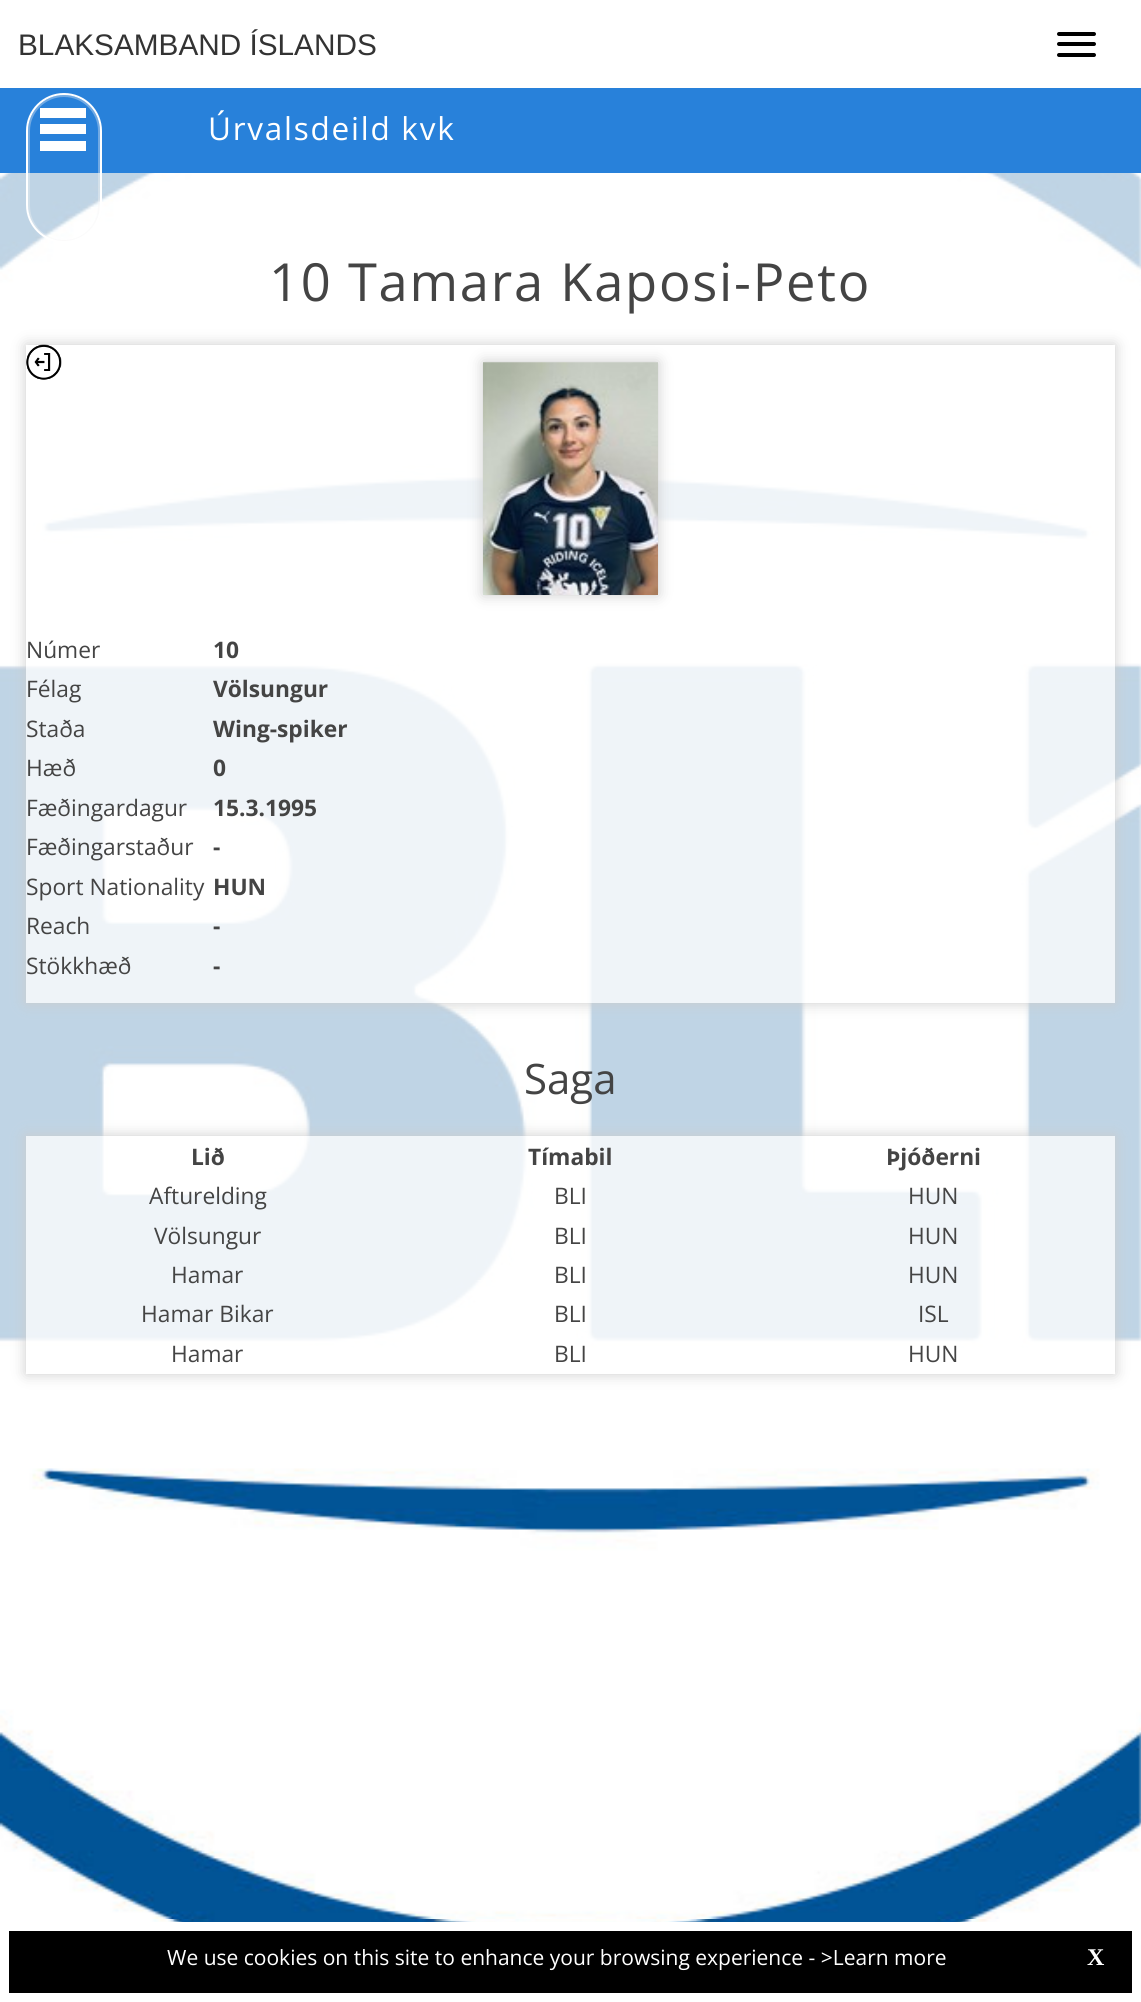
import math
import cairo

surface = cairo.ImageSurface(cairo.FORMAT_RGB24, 1141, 2002)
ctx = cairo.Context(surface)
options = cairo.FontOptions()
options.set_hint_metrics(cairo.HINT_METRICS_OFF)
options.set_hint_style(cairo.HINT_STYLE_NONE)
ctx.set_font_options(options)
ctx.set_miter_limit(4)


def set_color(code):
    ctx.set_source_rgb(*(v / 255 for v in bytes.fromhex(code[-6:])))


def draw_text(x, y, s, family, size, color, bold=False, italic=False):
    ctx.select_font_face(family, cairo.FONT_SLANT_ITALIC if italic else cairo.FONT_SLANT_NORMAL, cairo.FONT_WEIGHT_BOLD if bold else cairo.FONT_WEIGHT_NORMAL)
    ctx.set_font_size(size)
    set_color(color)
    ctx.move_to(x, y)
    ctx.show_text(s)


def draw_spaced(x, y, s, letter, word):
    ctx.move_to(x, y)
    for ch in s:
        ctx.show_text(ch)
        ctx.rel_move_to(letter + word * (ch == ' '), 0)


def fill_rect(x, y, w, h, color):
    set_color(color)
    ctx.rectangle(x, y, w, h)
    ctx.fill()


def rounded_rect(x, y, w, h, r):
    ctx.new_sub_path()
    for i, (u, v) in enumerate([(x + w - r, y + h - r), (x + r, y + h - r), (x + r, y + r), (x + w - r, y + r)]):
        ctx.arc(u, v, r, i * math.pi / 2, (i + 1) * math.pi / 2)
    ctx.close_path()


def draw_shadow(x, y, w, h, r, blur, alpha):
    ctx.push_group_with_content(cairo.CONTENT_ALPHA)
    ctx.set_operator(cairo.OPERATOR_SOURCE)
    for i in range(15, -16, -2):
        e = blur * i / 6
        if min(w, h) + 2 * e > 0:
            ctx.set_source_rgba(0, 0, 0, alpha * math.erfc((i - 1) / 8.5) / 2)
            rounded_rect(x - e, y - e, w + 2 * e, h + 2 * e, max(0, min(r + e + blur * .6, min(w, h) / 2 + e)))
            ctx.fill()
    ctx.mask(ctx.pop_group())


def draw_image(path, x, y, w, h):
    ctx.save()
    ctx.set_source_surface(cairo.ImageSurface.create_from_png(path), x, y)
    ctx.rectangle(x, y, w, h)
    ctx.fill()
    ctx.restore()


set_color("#ffffff")
ctx.paint()
draw_image("assets/img1.png", 0, 173, 1141, 1749)
draw_text(18, 55, "BLAKSAMBAND ÍSLANDS", "Liberation Sans", 29.75, "#333333")
set_color("#000000")
rounded_rect(1057, 32, 39, 4, 2)
ctx.fill()
rounded_rect(1057, 42, 39, 4, 2)
ctx.fill()
rounded_rect(1057, 53, 39, 4, 2)
ctx.fill()
fill_rect(0, 88, 1141, 85, "#2881da")
ctx.set_source_rgba(1, 1, 1, 0.75)
ctx.rectangle(0, 173, 1141, 1176)
ctx.fill()
rounded_rect(29, 96, 70, 145, 35)
ctx.set_source_rgba(0.957, 0.957, 0.957, 0.36)
ctx.stroke()
rounded_rect(27, 94, 74, 148, 37)
set_color("#ffffff")
ctx.stroke()
ctx.new_path()
ctx.move_to(86, 108)
ctx.line_to(86, 118)
ctx.line_to(40, 118)
ctx.line_to(40, 108)
ctx.close_path()
ctx.move_to(40, 124)
ctx.line_to(40, 134)
ctx.line_to(86, 134)
ctx.line_to(86, 124)
ctx.close_path()
ctx.move_to(86, 141)
ctx.line_to(40, 141)
ctx.line_to(40, 151)
ctx.line_to(86, 151)
ctx.close_path()
ctx.fill()
ctx.select_font_face("Open Sans")
ctx.set_font_size(31.5)
draw_spaced(208, 140, "Úrvalsdeild kvk", 1.75, 0)
ctx.set_font_size(52.5)
set_color("#444444")
draw_spaced(269, 301, "10 Tamara Kaposi-Peto", 1.75, 0)
ctx.save()
ctx.set_fill_rule(cairo.FILL_RULE_EVEN_ODD)
ctx.new_path()
ctx.move_to(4, 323)
ctx.line_to(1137, 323)
ctx.line_to(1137, 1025)
ctx.line_to(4, 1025)
ctx.close_path()
ctx.move_to(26, 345)
ctx.line_to(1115, 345)
ctx.line_to(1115, 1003)
ctx.line_to(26, 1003)
ctx.close_path()
ctx.clip()
set_color("#cccccc")
draw_shadow(26, 345, 1089, 658, 0, 7, 1)
ctx.restore()
ctx.set_source_rgba(1, 1, 1, 0.75)
ctx.rectangle(26, 345, 1089, 658)
ctx.fill()
draw_image("assets/img2.png", 26, 344, 36, 36)
set_color("#cccccc")
draw_shadow(483, 362, 175, 233, 0, 7, 1)
draw_image("assets/img3.png", 483, 362, 175, 233)
draw_text(26, 658, "Númer", "Open Sans", 22.75, "#444444")
draw_text(213, 658, "10", "Open Sans", 22.75, "#444444", bold=True)
draw_text(26, 697, "Félag", "Open Sans", 22.75, "#444444")
draw_text(213, 697, "Völsungur", "Open Sans", 22.75, "#444444", bold=True)
draw_text(26, 737, "Staða", "Open Sans", 22.75, "#444444")
draw_text(213, 737, "Wing-spiker", "Open Sans", 22.75, "#444444", bold=True)
draw_text(26, 776, "Hæð", "Open Sans", 22.75, "#444444")
draw_text(213, 776, "0", "Open Sans", 22.75, "#444444", bold=True)
draw_text(26, 816, "Fæðingardagur", "Open Sans", 22.75, "#444444")
draw_text(213, 816, "15.3.1995", "Open Sans", 22.75, "#444444", bold=True)
draw_text(26, 855, "Fæðingarstaður", "Open Sans", 22.75, "#444444")
draw_text(213, 855, "-", "Open Sans", 22.75, "#444444", bold=True)
draw_text(26, 895, "Sport Nationality", "Open Sans", 22.75, "#444444")
draw_text(213, 895, "HUN", "Open Sans", 22.75, "#444444", bold=True)
draw_text(26, 934, "Reach", "Open Sans", 22.75, "#444444")
draw_text(213, 934, "-", "Open Sans", 22.75, "#444444", bold=True)
draw_text(26, 974, "Stökkhæð", "Open Sans", 22.75, "#444444")
draw_text(213, 974, "-", "Open Sans", 22.75, "#444444", bold=True)
draw_text(524, 1094, "Saga", "Open Sans", 42, "#444444")
ctx.save()
ctx.set_fill_rule(cairo.FILL_RULE_EVEN_ODD)
ctx.new_path()
ctx.move_to(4, 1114)
ctx.line_to(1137, 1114)
ctx.line_to(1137, 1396)
ctx.line_to(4, 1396)
ctx.close_path()
ctx.move_to(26, 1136)
ctx.line_to(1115, 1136)
ctx.line_to(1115, 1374)
ctx.line_to(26, 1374)
ctx.close_path()
ctx.clip()
set_color("#cccccc")
draw_shadow(26, 1136, 1089, 238, 0, 7, 1)
ctx.restore()
ctx.set_source_rgba(1, 1, 1, 0.75)
ctx.rectangle(26, 1136, 1089, 238)
ctx.fill()
draw_text(191, 1165, "Lið", "Open Sans", 22.75, "#444444", bold=True)
draw_text(528, 1165, "Tímabil", "Open Sans", 22.75, "#444444", bold=True)
draw_text(886, 1165, "Þjóðerni", "Open Sans", 22.75, "#444444", bold=True)
draw_text(149, 1204, "Afturelding", "Open Sans", 22.75, "#444444")
draw_text(554, 1204, "BLI", "Open Sans", 22.75, "#444444")
draw_text(908, 1204, "HUN", "Open Sans", 22.75, "#444444")
draw_text(154, 1244, "Völsungur", "Open Sans", 22.75, "#444444")
draw_text(554, 1244, "BLI", "Open Sans", 22.75, "#444444")
draw_text(908, 1244, "HUN", "Open Sans", 22.75, "#444444")
draw_text(171, 1283, "Hamar", "Open Sans", 22.75, "#444444")
draw_text(554, 1283, "BLI", "Open Sans", 22.75, "#444444")
draw_text(908, 1283, "HUN", "Open Sans", 22.75, "#444444")
draw_text(141, 1322, "Hamar Bikar", "Open Sans", 22.75, "#444444")
draw_text(554, 1322, "BLI", "Open Sans", 22.75, "#444444")
draw_text(918, 1322, "ISL", "Open Sans", 22.75, "#444444")
draw_text(171, 1362, "Hamar", "Open Sans", 22.75, "#444444")
draw_text(554, 1362, "BLI", "Open Sans", 22.75, "#444444")
draw_text(908, 1362, "HUN", "Open Sans", 22.75, "#444444")
fill_rect(9, 1931, 1123, 62, "#000000")
draw_text(167, 1965, "We use cookies on this site to enhance your browsing experience - >Learn more", "Open Sans", 21, "#ffffff")
draw_text(1087, 1965, "X", "Liberation Serif", 24, "#ffffff", bold=True)
surface.write_to_png("output.png")
